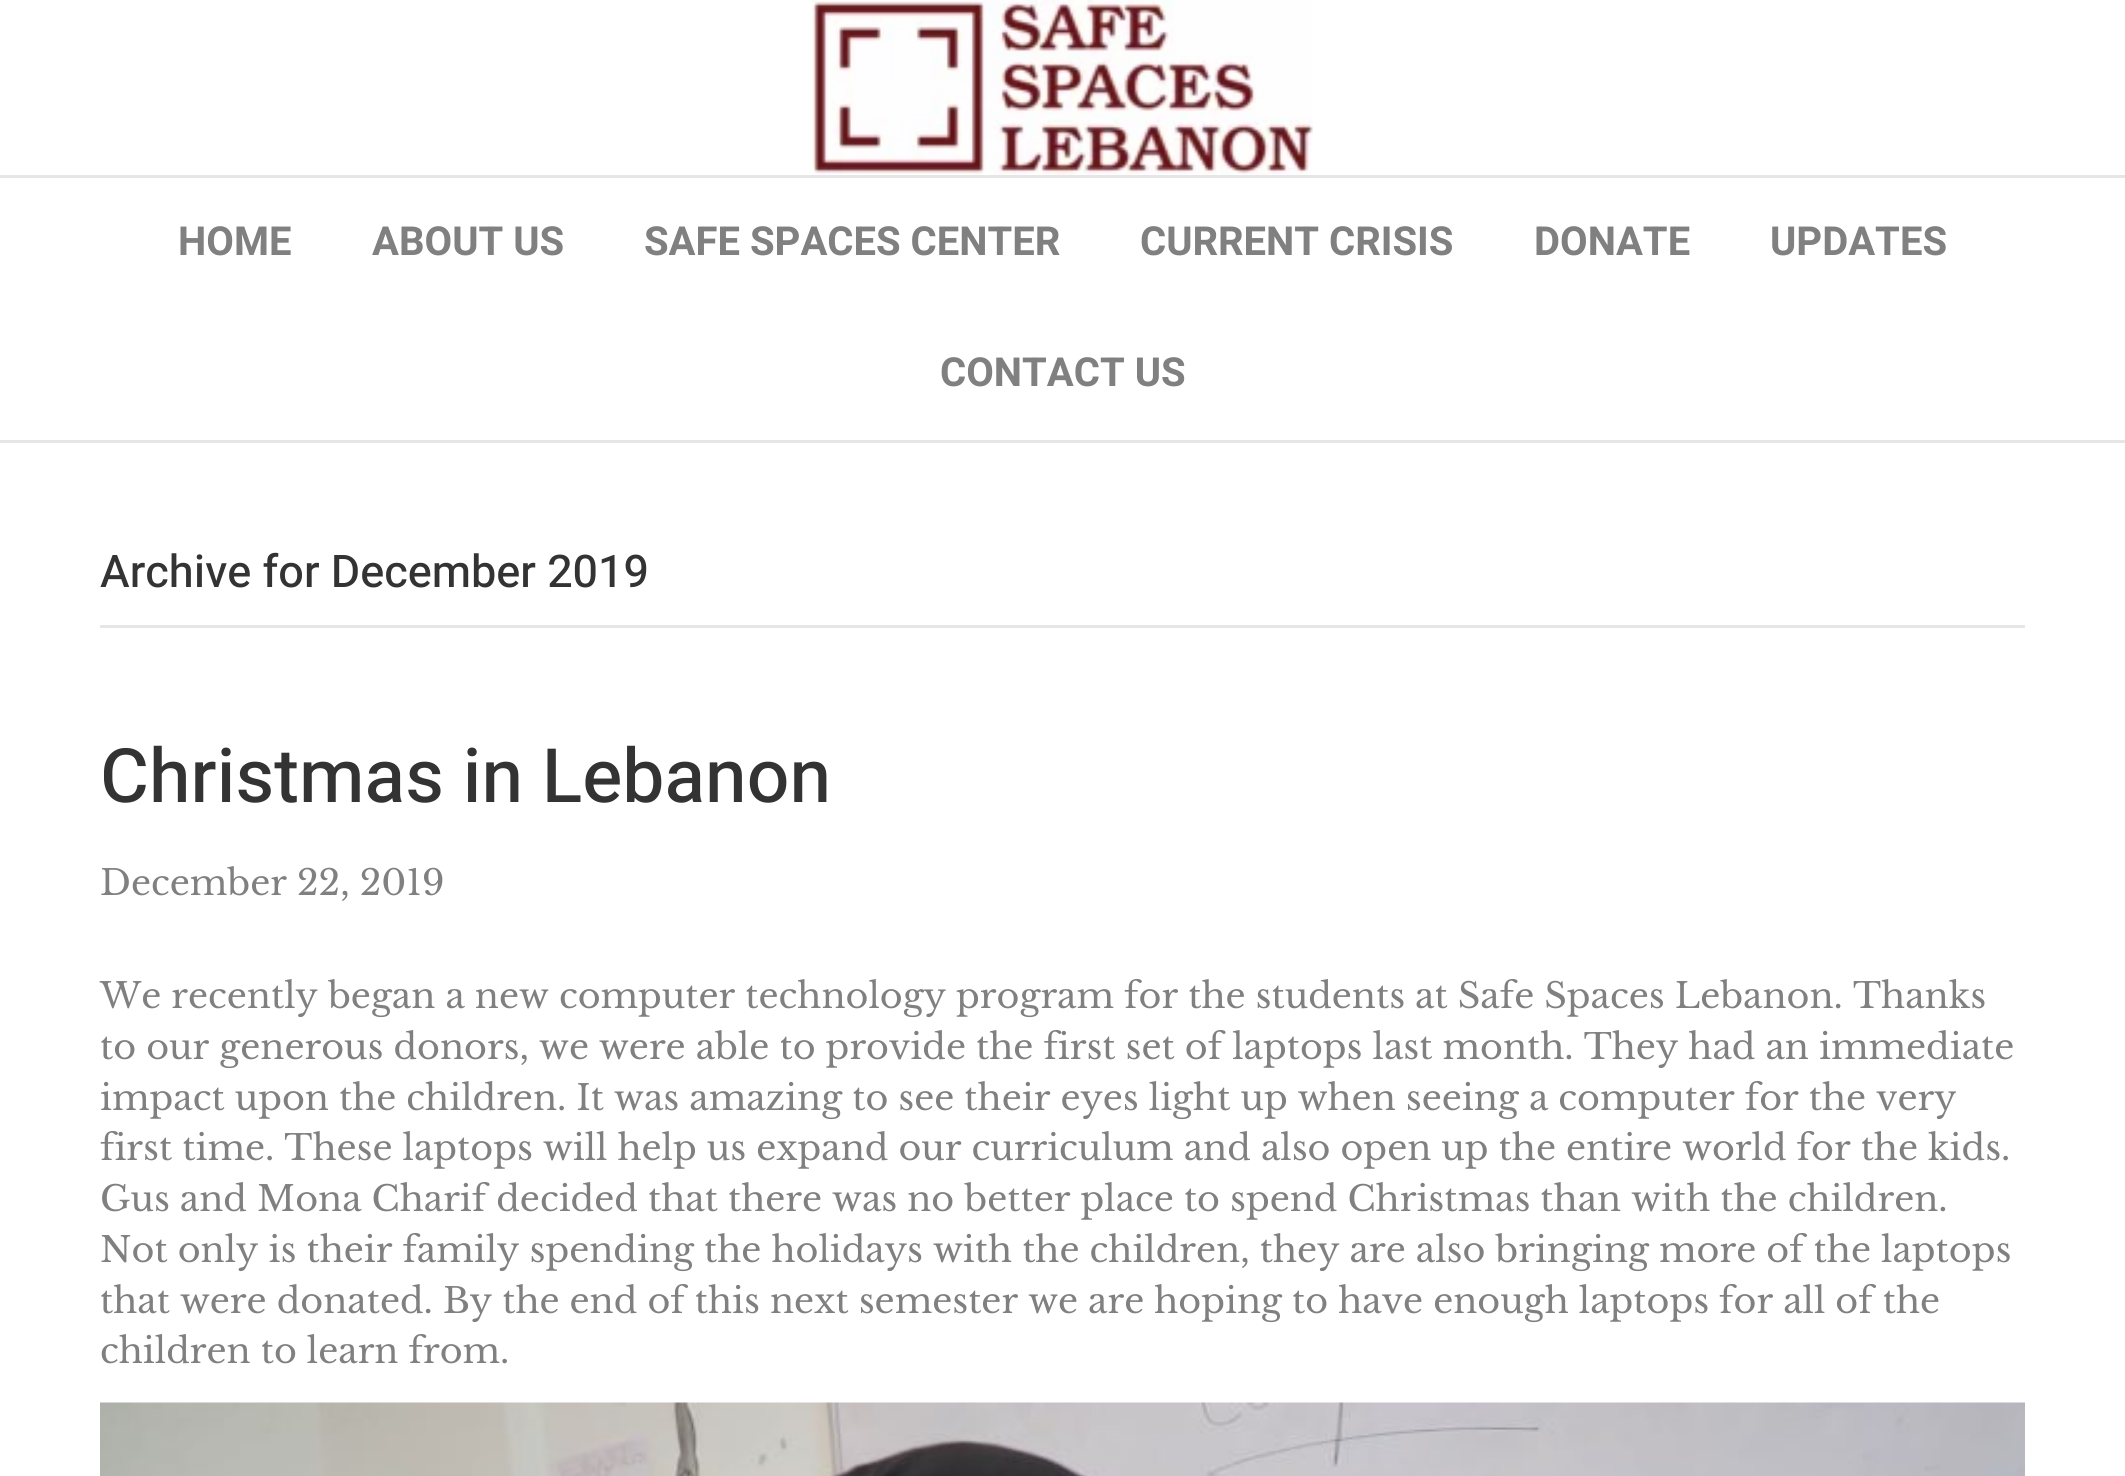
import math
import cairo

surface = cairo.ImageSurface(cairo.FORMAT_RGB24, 2125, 1476)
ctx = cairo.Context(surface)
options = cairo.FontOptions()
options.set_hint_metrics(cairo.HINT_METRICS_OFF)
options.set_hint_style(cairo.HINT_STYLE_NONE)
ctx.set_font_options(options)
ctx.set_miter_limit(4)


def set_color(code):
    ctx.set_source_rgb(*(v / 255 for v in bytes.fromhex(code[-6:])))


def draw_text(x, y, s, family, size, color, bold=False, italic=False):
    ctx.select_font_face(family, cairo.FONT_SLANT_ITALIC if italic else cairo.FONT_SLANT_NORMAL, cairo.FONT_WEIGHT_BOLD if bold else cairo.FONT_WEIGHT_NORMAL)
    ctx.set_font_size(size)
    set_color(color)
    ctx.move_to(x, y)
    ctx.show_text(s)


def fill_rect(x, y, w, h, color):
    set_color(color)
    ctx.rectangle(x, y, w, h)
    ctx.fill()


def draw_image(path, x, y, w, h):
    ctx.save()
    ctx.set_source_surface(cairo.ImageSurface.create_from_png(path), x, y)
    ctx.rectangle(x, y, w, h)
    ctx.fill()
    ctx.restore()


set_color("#ffffff")
ctx.paint()
draw_image("assets/img1.png", 812, 0, 501, 175)
fill_rect(0, 175, 2125, 3, "#e6e6e6")
fill_rect(0, 440, 2125, 3, "#e6e6e6")
draw_text(178, 255, "HOME", "Heebo", 40, "#808080", bold=True)
draw_text(372, 255, "ABOUT US", "Heebo", 40, "#808080", bold=True)
draw_text(644, 255, "SAFE SPACES CENTER", "Heebo", 40, "#808080", bold=True)
draw_text(1140, 255, "CURRENT CRISIS", "Heebo", 40, "#808080", bold=True)
draw_text(1534, 255, "DONATE", "Heebo", 40, "#808080", bold=True)
draw_text(1770, 255, "UPDATES", "Heebo", 40, "#808080", bold=True)
draw_text(940, 386, "CONTACT US", "Heebo", 40, "#808080", bold=True)
fill_rect(100, 625, 1925, 3, "#e6e6e6")
draw_text(100, 587, "Archive for December 2019", "Heebo Medium", 45, "#333333")
draw_text(100, 802, "Christmas in Lebanon", "Heebo Medium", 75, "#333333")
draw_text(100, 895, "December 22, 2019", "Libre Baskerville", 35, "#808080")
draw_text(100, 1008, "We recently began a new computer technology program for the students at Safe Spaces Lebanon. Thanks", "Libre Baskerville", 35, "#808080")
draw_text(100, 1059, "to our generous donors, we were able to provide the first set of laptops last month. They had an immediate", "Libre Baskerville", 35, "#808080")
draw_text(100, 1110, "impact upon the children. It was amazing to see their eyes light up when seeing a computer for the very", "Libre Baskerville", 35, "#808080")
draw_text(100, 1160, "first time. These laptops will help us expand our curriculum and also open up the entire world for the kids.", "Libre Baskerville", 35, "#808080")
draw_text(100, 1211, "Gus and Mona Charif decided that there was no better place to spend Christmas than with the children.", "Libre Baskerville", 35, "#808080")
draw_text(100, 1262, "Not only is their family spending the holidays with the children, they are also bringing more of the laptops", "Libre Baskerville", 35, "#808080")
draw_text(100, 1313, "that were donated. By the end of this next semester we are hoping to have enough laptops for all of the", "Libre Baskerville", 35, "#808080")
draw_text(100, 1363, "children to learn from.", "Libre Baskerville", 35, "#808080")
draw_image("assets/img2.png", 100, 1402, 1925, 74)
surface.write_to_png("output.png")
